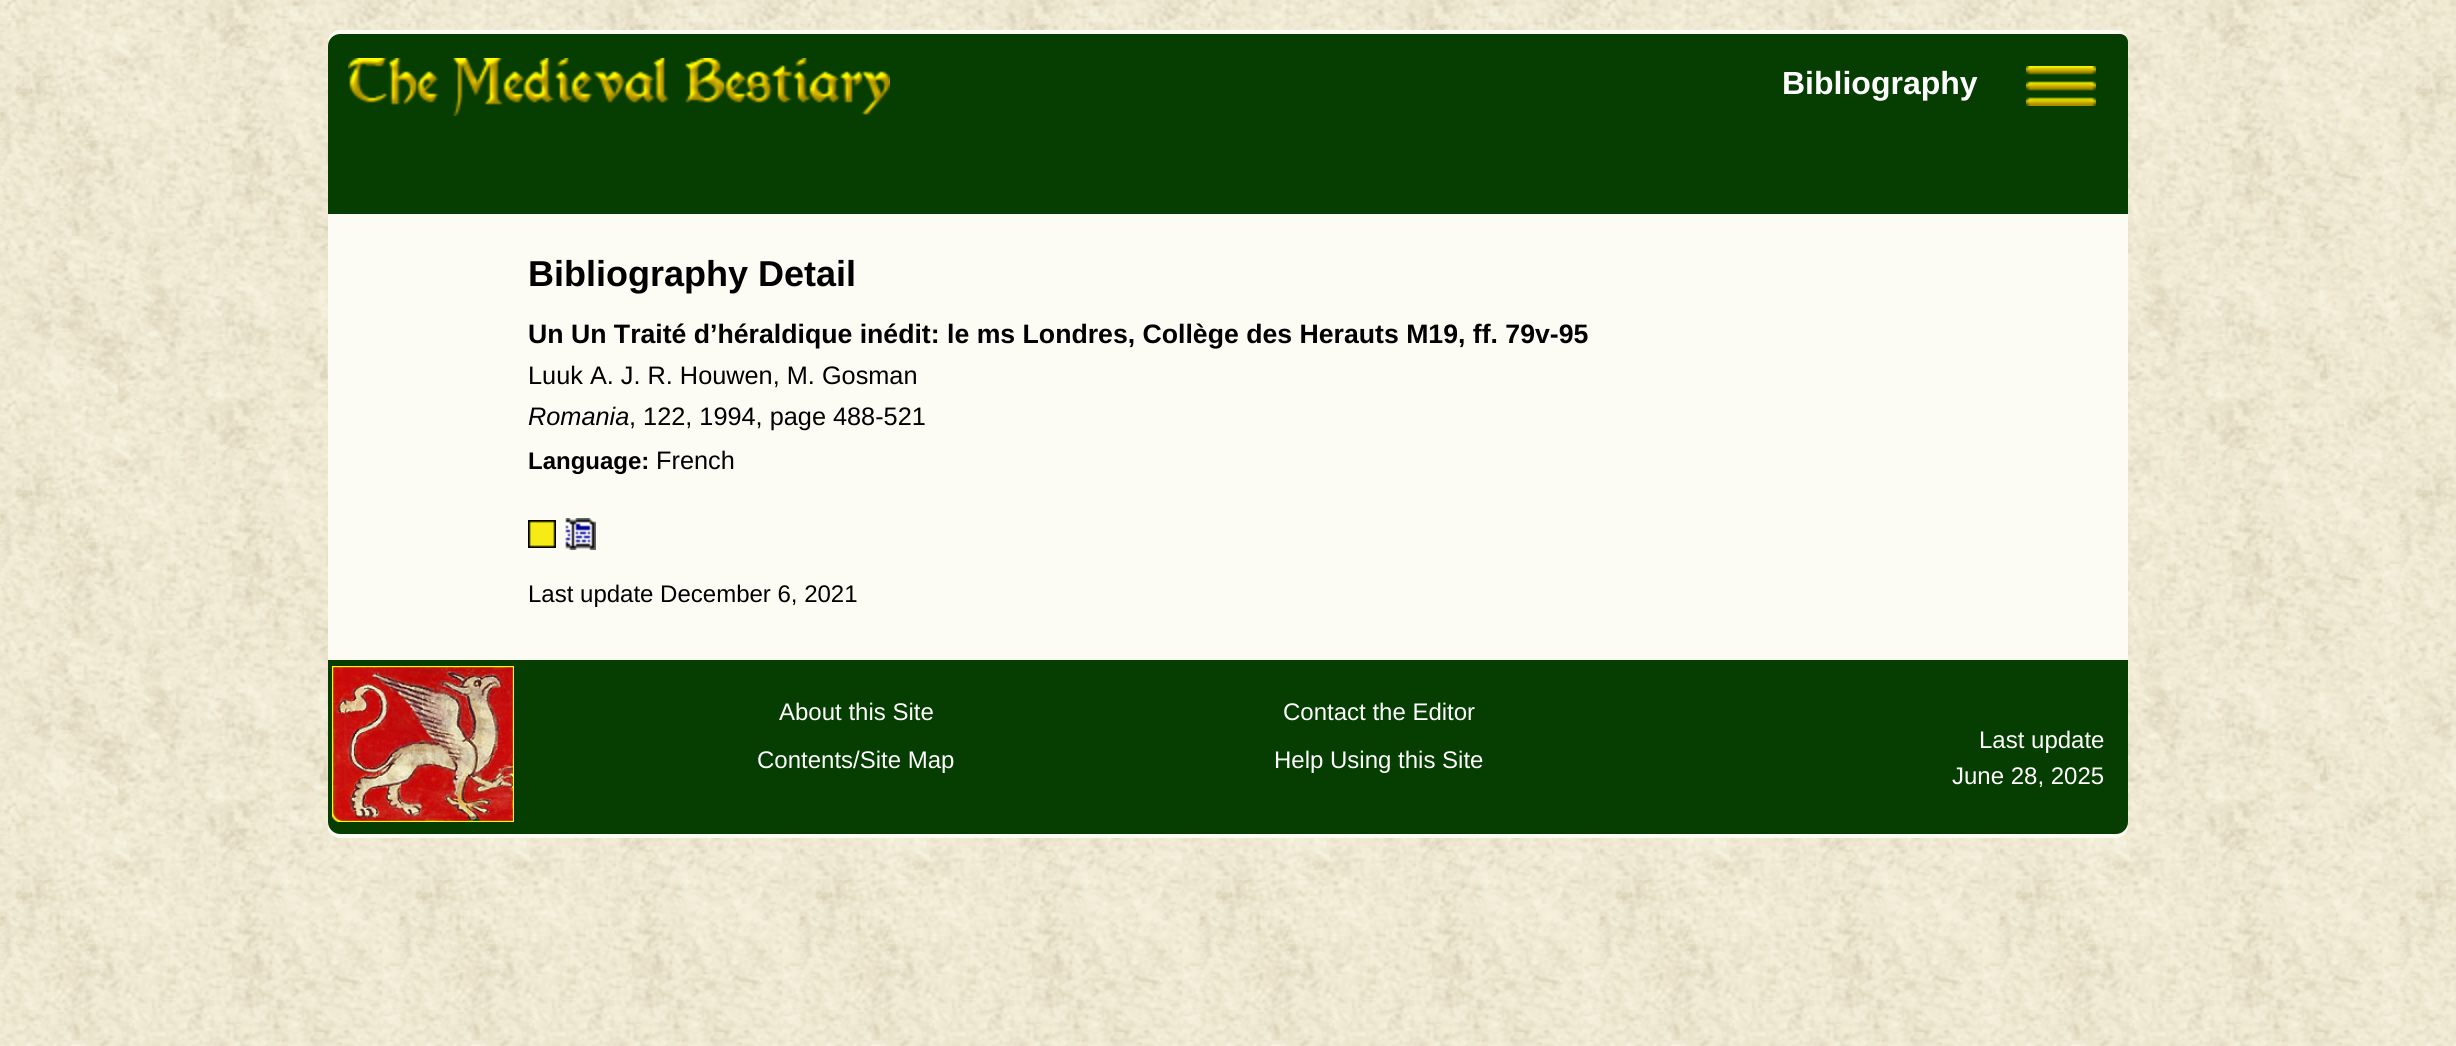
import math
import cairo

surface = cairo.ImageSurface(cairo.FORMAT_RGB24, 2456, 1046)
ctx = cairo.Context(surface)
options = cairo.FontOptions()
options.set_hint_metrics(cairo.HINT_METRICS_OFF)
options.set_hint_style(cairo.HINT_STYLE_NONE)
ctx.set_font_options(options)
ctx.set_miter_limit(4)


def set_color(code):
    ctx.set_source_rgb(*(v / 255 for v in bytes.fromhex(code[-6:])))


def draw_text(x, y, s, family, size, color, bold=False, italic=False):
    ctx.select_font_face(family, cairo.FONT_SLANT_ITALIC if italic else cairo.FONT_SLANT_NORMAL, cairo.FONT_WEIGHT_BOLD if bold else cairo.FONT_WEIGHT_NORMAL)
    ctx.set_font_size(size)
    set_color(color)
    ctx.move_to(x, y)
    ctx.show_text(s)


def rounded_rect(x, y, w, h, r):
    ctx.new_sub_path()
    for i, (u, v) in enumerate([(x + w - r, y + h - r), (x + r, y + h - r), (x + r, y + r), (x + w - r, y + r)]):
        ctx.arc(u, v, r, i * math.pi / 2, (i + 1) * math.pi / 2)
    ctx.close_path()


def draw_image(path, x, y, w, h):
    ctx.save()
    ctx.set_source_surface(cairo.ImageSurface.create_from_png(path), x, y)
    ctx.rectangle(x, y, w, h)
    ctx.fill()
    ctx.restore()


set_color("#ffffff")
ctx.paint()
draw_image("assets/img1.png", 0, 0, 2456, 1046)
set_color("#fcfcf4")
rounded_rect(328, 30, 1800, 808, 12)
ctx.fill()
set_color("#053e00")
ctx.new_path()
ctx.move_to(340, 34)
ctx.line_to(2116, 34)
ctx.curve_to(2122.5, 34, 2128, 39.5, 2128, 46)
ctx.line_to(2128, 214)
ctx.line_to(328, 214)
ctx.line_to(328, 46)
ctx.curve_to(328, 39.5, 333.5, 34, 340, 34)
ctx.close_path()
ctx.fill()
draw_image("assets/img2.png", 348, 58, 542, 58)
draw_text(1782, 94, "Bibliography", "Liberation Sans", 32, "#ffffff", bold=True)
set_color("#053e00")
rounded_rect(1994, 34, 134, 110, 8)
ctx.fill()
draw_image("assets/img3.png", 2026, 66, 70, 40)
draw_text(528, 286, "Bibliography Detail", "Liberation Sans", 36, "#000000", bold=True)
draw_text(528, 343, "Un Un Traité d’héraldique inédit: le ms Londres, Collège des Herauts M19, ff. 79v-95", "Liberation Sans", 26.65, "#000000", bold=True)
draw_text(528, 384, "Luuk A. J. R. Houwen, M. Gosman", "Liberation Sans", 25.3, "#000000")
draw_text(528, 425, "Romania", "Liberation Sans", 25.3, "#000000", italic=True)
draw_text(629, 425, ", 122, 1994, page 488-521", "Liberation Sans", 25.3, "#000000")
draw_text(528, 469, "Language:", "Liberation Sans", 24, "#000000", bold=True)
draw_text(656, 469, "French", "Liberation Sans", 25.3, "#000000")
draw_image("assets/img4.png", 528, 520, 28, 28)
draw_image("assets/img5.png", 564, 518, 32, 32)
draw_text(528, 602, "Last update December 6, 2021", "Liberation Sans", 24, "#000000")
set_color("#053e00")
ctx.new_path()
ctx.move_to(328, 660)
ctx.line_to(2128, 660)
ctx.line_to(2128, 822)
ctx.curve_to(2128, 828.5, 2122.5, 834, 2116, 834)
ctx.line_to(340, 834)
ctx.curve_to(333.5, 834, 328, 828.5, 328, 822)
ctx.close_path()
ctx.fill()
draw_image("assets/img6.png", 332, 666, 182, 156)
draw_text(779, 720, "About this Site", "Liberation Sans", 24, "#ffffff")
draw_text(757, 768, "Contents/Site Map", "Liberation Sans", 24, "#ffffff")
draw_text(1283, 720, "Contact the Editor", "Liberation Sans", 24, "#ffffff")
draw_text(1274, 768, "Help Using this Site", "Liberation Sans", 24, "#ffffff")
draw_text(1979, 748, "Last update", "Liberation Sans", 24, "#ffffff")
draw_text(1952, 784, "June 28, 2025", "Liberation Sans", 24, "#ffffff")
surface.write_to_png("output.png")
